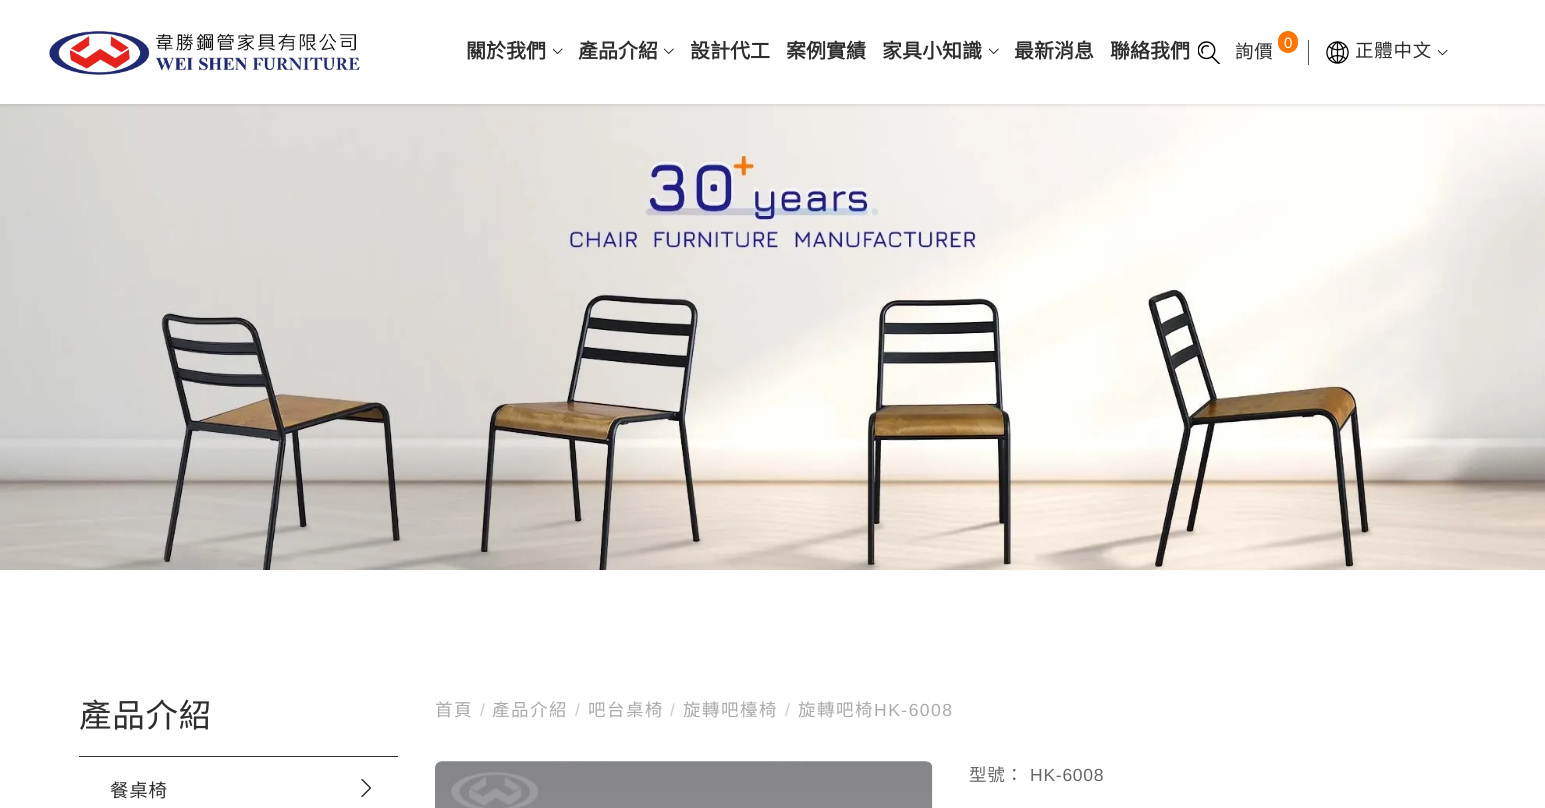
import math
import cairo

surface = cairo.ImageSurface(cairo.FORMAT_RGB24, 1545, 808)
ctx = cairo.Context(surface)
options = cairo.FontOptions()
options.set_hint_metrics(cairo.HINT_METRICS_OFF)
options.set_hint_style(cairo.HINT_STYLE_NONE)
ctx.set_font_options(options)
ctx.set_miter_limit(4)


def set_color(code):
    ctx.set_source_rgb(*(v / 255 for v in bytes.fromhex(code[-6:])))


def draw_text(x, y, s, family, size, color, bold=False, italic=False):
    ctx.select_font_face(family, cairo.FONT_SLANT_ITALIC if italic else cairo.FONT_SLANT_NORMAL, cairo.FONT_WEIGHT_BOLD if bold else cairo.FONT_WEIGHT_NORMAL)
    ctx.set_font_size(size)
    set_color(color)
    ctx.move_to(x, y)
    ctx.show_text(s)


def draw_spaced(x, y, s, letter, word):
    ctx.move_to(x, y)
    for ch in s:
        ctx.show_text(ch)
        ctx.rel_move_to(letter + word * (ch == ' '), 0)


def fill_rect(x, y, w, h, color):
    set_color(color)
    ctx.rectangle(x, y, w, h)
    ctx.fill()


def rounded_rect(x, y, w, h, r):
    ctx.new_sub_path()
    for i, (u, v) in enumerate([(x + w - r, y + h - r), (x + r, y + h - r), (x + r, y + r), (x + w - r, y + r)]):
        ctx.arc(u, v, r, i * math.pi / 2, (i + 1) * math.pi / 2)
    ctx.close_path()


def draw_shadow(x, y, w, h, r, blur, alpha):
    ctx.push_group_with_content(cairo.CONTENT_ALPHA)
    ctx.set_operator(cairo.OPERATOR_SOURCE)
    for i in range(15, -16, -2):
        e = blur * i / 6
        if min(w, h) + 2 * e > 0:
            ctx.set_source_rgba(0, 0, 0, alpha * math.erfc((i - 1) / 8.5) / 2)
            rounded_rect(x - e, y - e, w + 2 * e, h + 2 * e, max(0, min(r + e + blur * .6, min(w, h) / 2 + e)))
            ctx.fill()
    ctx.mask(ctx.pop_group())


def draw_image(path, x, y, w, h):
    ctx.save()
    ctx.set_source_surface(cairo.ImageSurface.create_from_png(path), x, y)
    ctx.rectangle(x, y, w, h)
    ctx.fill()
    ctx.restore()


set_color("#ffffff")
ctx.paint()
draw_image("assets/img7.png", 0, 104, 1545, 466)
set_color("#000000")
draw_shadow(0, 0, 1545, 104, 0, 3, 0.16)
fill_rect(0, 0, 1545, 104, "#ffffff")
draw_image("assets/img1.png", 49, 31, 311, 44)
draw_text(466, 58, "關於我們", "Noto Sans CJK TC", 20, "#2e2e2e", bold=True)
draw_image("assets/img2.png", 553, 48, 10, 6)
draw_text(578, 58, "產品介紹", "Noto Sans CJK TC", 20, "#2e2e2e", bold=True)
draw_image("assets/img3.png", 664, 48, 10, 6)
draw_text(690, 58, "設計代工", "Noto Sans CJK TC", 20, "#2e2e2e", bold=True)
draw_text(786, 58, "案例實績", "Noto Sans CJK TC", 20, "#2e2e2e", bold=True)
draw_text(882, 58, "家具小知識", "Noto Sans CJK TC", 20, "#2e2e2e", bold=True)
draw_image("assets/img3.png", 989, 48, 10, 6)
draw_text(1014, 58, "最新消息", "Noto Sans CJK TC", 20, "#2e2e2e", bold=True)
draw_text(1110, 58, "聯絡我們", "Noto Sans CJK TC", 20, "#2e2e2e", bold=True)
draw_image("assets/img4.png", 1198, 41, 22, 23)
ctx.select_font_face("Noto Sans CJK TC")
ctx.set_font_size(18.5)
draw_spaced(1235, 58, "詢價", 0.75, 0)
set_color("#ff7500")
rounded_rect(1278, 31, 20, 22, 10)
ctx.fill()
draw_text(1284, 48, "0", "Liberation Sans", 15, "#ffffff")
fill_rect(1308, 40, 1, 25, "#555555")
draw_image("assets/img5.png", 1326, 41, 23, 23)
ctx.select_font_face("Noto Sans CJK TC")
ctx.set_font_size(18.5)
set_color("#2e2e2e")
draw_spaced(1355, 57, "正體中文", 0.75, 0)
draw_image("assets/img6.png", 1438, 49, 10, 7)
fill_rect(79, 756, 319, 1, "#2e2e2e")
ctx.set_font_size(32.5)
draw_spaced(79, 727, "產品介紹", 0.75, 0)
ctx.set_font_size(18.5)
draw_spaced(110, 797, "餐桌椅", 0.75, 0)
draw_image("assets/img8.png", 361, 779, 10, 19)
ctx.set_font_size(17.5)
set_color("#aaaaaa")
draw_spaced(435, 716, "首頁", 1.5, 0)
ctx.select_font_face("Liberation Sans")
set_color("#cccccc")
draw_spaced(480, 716, "/", 1.5, 0)
ctx.select_font_face("Noto Sans CJK TC")
set_color("#aaaaaa")
draw_spaced(492, 716, "產品介紹", 1.5, 0)
ctx.select_font_face("Liberation Sans")
set_color("#cccccc")
draw_spaced(575, 716, "/", 1.5, 0)
ctx.select_font_face("Noto Sans CJK TC")
set_color("#aaaaaa")
draw_spaced(588, 716, "吧台桌椅", 1.5, 0)
ctx.select_font_face("Liberation Sans")
set_color("#cccccc")
draw_spaced(670, 716, "/", 1.5, 0)
ctx.select_font_face("Noto Sans CJK TC")
set_color("#aaaaaa")
draw_spaced(683, 716, "旋轉吧檯椅", 1.5, 0)
ctx.select_font_face("Liberation Sans")
set_color("#cccccc")
draw_spaced(785, 716, "/", 1.5, 0)
ctx.select_font_face("Noto Sans CJK TC")
set_color("#aaaaaa")
draw_spaced(798, 716, "旋轉吧椅", 1.5, 0)
ctx.select_font_face("Liberation Sans")
draw_spaced(874, 716, "HK-6008", 1.5, 0)
draw_image("assets/img9.png", 435, 761, 498, 47)
ctx.select_font_face("Noto Sans CJK TC")
set_color("#666666")
draw_spaced(969, 781, "型號：", 0.75, 0)
ctx.select_font_face("Liberation Sans")
draw_spaced(1030, 781, "HK-6008", 0.75, 0)
surface.write_to_png("output.png")
